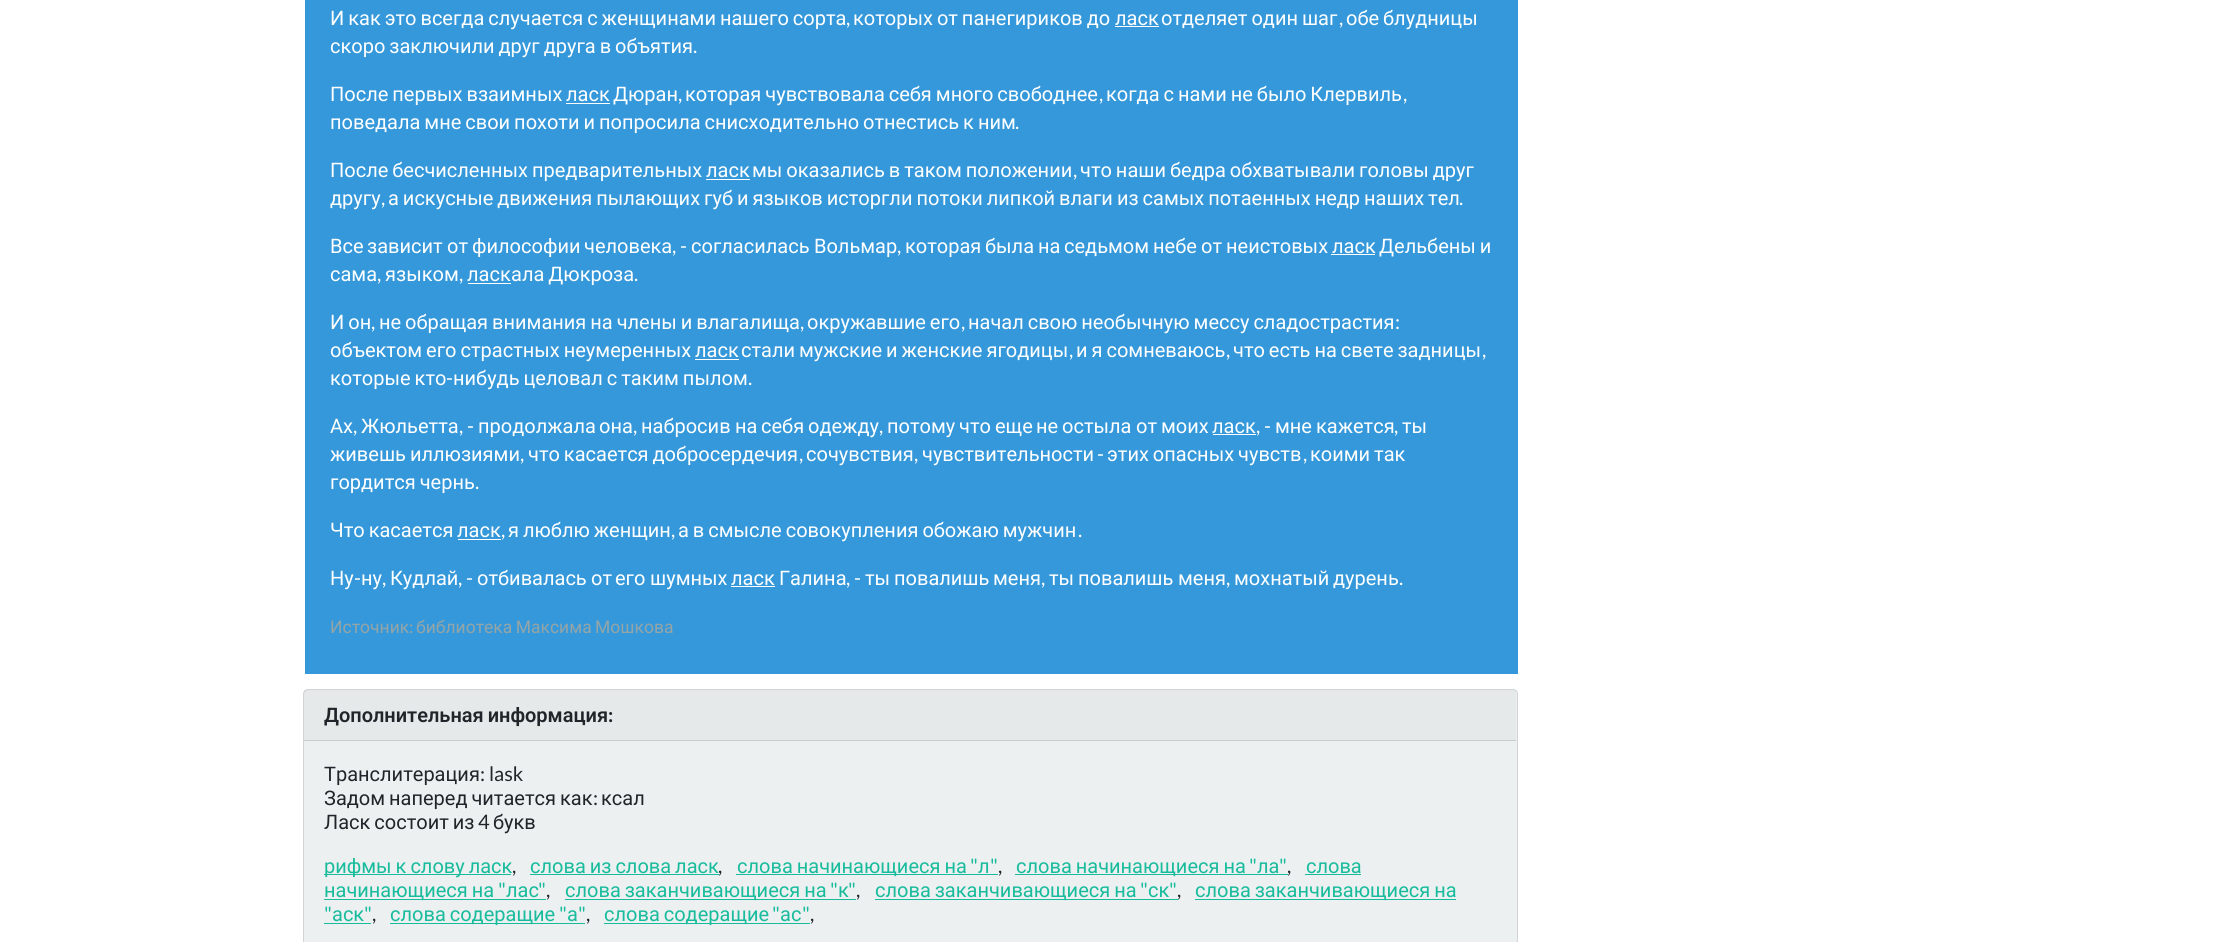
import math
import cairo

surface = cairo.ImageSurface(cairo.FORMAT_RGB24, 2224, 942)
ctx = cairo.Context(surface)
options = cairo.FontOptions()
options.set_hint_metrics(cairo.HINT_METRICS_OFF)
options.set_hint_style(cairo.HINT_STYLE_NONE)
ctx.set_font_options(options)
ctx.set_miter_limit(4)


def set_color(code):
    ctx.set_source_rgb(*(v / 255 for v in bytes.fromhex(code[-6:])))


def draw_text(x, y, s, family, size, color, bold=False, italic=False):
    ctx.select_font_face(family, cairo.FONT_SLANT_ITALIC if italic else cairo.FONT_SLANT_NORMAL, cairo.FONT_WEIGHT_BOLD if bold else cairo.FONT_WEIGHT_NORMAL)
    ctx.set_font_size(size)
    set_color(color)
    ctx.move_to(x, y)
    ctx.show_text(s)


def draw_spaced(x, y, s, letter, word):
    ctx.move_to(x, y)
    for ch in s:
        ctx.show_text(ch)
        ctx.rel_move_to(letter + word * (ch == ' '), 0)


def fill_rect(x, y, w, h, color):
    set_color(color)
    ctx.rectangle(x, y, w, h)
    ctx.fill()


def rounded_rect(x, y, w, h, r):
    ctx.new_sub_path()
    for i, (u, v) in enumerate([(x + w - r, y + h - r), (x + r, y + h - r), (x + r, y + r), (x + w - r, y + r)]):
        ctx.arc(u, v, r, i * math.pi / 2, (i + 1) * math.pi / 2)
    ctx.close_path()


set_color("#ffffff")
ctx.paint()
fill_rect(305, 0, 1213, 674, "#3498db")
ctx.select_font_face("Roboto")
ctx.set_font_size(20)
set_color("#ffffff")
draw_spaced(330, 25, "И как это всегда случается с женщинами нашего сорта", 0, -1)
draw_text(846, 25, ",", "Lato", 20, "#ffffff")
ctx.select_font_face("Roboto")
draw_spaced(853, 25, "которых от панегириков до", 0, -1)
draw_text(1115, 25, "ласк", "Roboto", 20, "#ffffff")
fill_rect(1115, 26, 44, 1, "#ffffff")
draw_spaced(1161, 25, "отделяет один шаг", 0, -1)
draw_text(1339, 25, ",", "Lato", 20, "#ffffff")
ctx.select_font_face("Roboto")
draw_spaced(1346, 25, "обе блудницы", 0, -1)
draw_spaced(330, 53, "скоро заключили друг друга в объятия", 0, -1)
draw_text(693, 53, ".", "Lato", 20, "#ffffff")
ctx.select_font_face("Roboto")
draw_spaced(330, 101, "После первых взаимных", 0, -1)
draw_text(566, 101, "ласк", "Roboto", 20, "#ffffff")
fill_rect(566, 103, 44, 1, "#ffffff")
draw_text(613, 101, "Дюран", "Roboto", 20, "#ffffff")
draw_text(678, 101, ",", "Lato", 20, "#ffffff")
ctx.select_font_face("Roboto")
draw_spaced(685, 101, "которая чувствовала себя много свободнее", 0, -1)
draw_text(1099, 101, ",", "Lato", 20, "#ffffff")
ctx.select_font_face("Roboto")
draw_spaced(1106, 101, "когда с нами не было Клервиль", 0, -1)
draw_text(1403, 101, ",", "Lato", 20, "#ffffff")
ctx.select_font_face("Roboto")
draw_spaced(330, 129, "поведала мне свои похоти и попросила снисходительно отнестись к ним", 0, -1)
draw_text(1015, 129, ".", "Lato", 20, "#ffffff")
ctx.select_font_face("Roboto")
draw_spaced(330, 177, "После бесчисленных предварительных", 0, -1)
draw_text(706, 177, "ласк", "Roboto", 20, "#ffffff")
fill_rect(706, 179, 44, 1, "#ffffff")
draw_spaced(752, 177, "мы оказались в таком положении", 0, -1)
draw_text(1073, 177, ",", "Lato", 20, "#ffffff")
ctx.select_font_face("Roboto")
draw_spaced(1080, 177, "что наши бедра обхватывали головы друг", 0, -1)
draw_text(330, 205, "другу", "Roboto", 20, "#ffffff")
draw_text(381, 205, ",", "Lato", 20, "#ffffff")
ctx.select_font_face("Roboto")
draw_spaced(388, 205, "а искусные движения пылающих губ и языков исторгли потоки липкой влаги из самых потаенных недр наших тел", 0, -1)
draw_text(1459, 205, ".", "Lato", 20, "#ffffff")
draw_text(330, 253, "Все", "Roboto", 20, "#ffffff")
draw_text(367, 253, "зависит", "Roboto", 20, "#ffffff")
draw_text(447, 253, "от", "Roboto", 20, "#ffffff")
draw_text(472, 253, "философии", "Roboto", 20, "#ffffff")
draw_text(584, 253, "человека", "Roboto", 20, "#ffffff")
draw_text(672, 253, ", -", "Lato", 20, "#ffffff")
draw_text(691, 253, "согласилась", "Roboto", 20, "#ffffff")
draw_text(814, 253, "Вольмар", "Roboto", 20, "#ffffff")
draw_text(897, 253, ",", "Lato", 20, "#ffffff")
draw_text(905, 253, "которая", "Roboto", 20, "#ffffff")
draw_text(985, 253, "была", "Roboto", 20, "#ffffff")
draw_text(1038, 253, "на", "Roboto", 20, "#ffffff")
draw_text(1064, 253, "седьмом", "Roboto", 20, "#ffffff")
draw_text(1153, 253, "небе", "Roboto", 20, "#ffffff")
draw_text(1201, 253, "от", "Roboto", 20, "#ffffff")
draw_text(1226, 253, "неистовых", "Roboto", 20, "#ffffff")
draw_text(1332, 253, "ласк", "Roboto", 20, "#ffffff")
fill_rect(1331, 254, 44, 1, "#ffffff")
draw_spaced(1379, 253, "Дельбены и", 0, -1)
draw_text(330, 281, "сама", "Roboto", 20, "#ffffff")
draw_text(377, 281, ",", "Lato", 20, "#ffffff")
draw_text(385, 281, "языком", "Roboto", 20, "#ffffff")
draw_text(459, 281, ",", "Lato", 20, "#ffffff")
draw_text(467, 281, "ласк", "Roboto", 20, "#ffffff")
fill_rect(468, 283, 43, 1, "#ffffff")
draw_spaced(511, 281, "ала Дюкроза", 0, -1)
draw_text(634, 281, ".", "Lato", 20, "#ffffff")
ctx.select_font_face("Roboto")
draw_spaced(330, 329, "И он", 0, -1)
draw_text(371, 329, ",", "Lato", 20, "#ffffff")
ctx.select_font_face("Roboto")
draw_spaced(379, 329, "не обращая внимания на члены и влагалища", 0, -1)
draw_text(800, 329, ",", "Lato", 20, "#ffffff")
ctx.select_font_face("Roboto")
draw_spaced(807, 329, "окружавшие его", 0, -1)
draw_text(961, 329, ",", "Lato", 20, "#ffffff")
ctx.select_font_face("Roboto")
draw_spaced(968, 329, "начал свою необычную мессу сладострастия", 0, -1)
draw_text(1395, 329, ":", "Lato", 20, "#ffffff")
ctx.select_font_face("Roboto")
draw_spaced(330, 357, "объектом его страстных неумеренных", 0, -1)
draw_text(695, 357, "ласк", "Roboto", 20, "#ffffff")
fill_rect(695, 359, 44, 1, "#ffffff")
draw_spaced(741, 357, "стали мужские и женские ягодицы", 0, -1)
draw_text(1069, 357, ",", "Lato", 20, "#ffffff")
ctx.select_font_face("Roboto")
draw_spaced(1076, 357, "и я сомневаюсь", 0, -1)
draw_text(1226, 357, ",", "Lato", 20, "#ffffff")
ctx.select_font_face("Roboto")
draw_spaced(1233, 357, "что есть на свете задницы", 0, -1)
draw_text(1482, 357, ",", "Lato", 20, "#ffffff")
ctx.select_font_face("Roboto")
draw_spaced(330, 385, "которые кто", 0, -1)
draw_text(446, 385, "-", "Lato", 20, "#ffffff")
ctx.select_font_face("Roboto")
draw_spaced(453, 385, "нибудь целовал с таким пылом", 0, -1)
draw_text(748, 385, ".", "Lato", 20, "#ffffff")
draw_text(330, 433, "Ах", "Roboto", 20, "#ffffff")
draw_text(353, 433, ",", "Lato", 20, "#ffffff")
draw_text(361, 433, "Жюльетта", "Roboto", 20, "#ffffff")
draw_text(459, 433, ", -", "Lato", 20, "#ffffff")
draw_text(478, 433, "продолжала", "Roboto", 20, "#ffffff")
draw_text(599, 433, "она", "Roboto", 20, "#ffffff")
draw_text(633, 433, ",", "Lato", 20, "#ffffff")
draw_text(641, 433, "набросив", "Roboto", 20, "#ffffff")
draw_text(735, 433, "на", "Roboto", 20, "#ffffff")
draw_text(761, 433, "себя", "Roboto", 20, "#ffffff")
draw_text(808, 433, "одежду", "Roboto", 20, "#ffffff")
draw_text(879, 433, ",", "Lato", 20, "#ffffff")
draw_text(887, 433, "потому", "Roboto", 20, "#ffffff")
draw_text(959, 433, "что", "Roboto", 20, "#ffffff")
draw_text(995, 433, "еще", "Roboto", 20, "#ffffff")
draw_text(1036, 433, "не", "Roboto", 20, "#ffffff")
draw_text(1062, 433, "остыла", "Roboto", 20, "#ffffff")
draw_text(1136, 433, "от", "Roboto", 20, "#ffffff")
draw_text(1161, 433, "моих", "Roboto", 20, "#ffffff")
draw_text(1212, 433, "ласк", "Roboto", 20, "#ffffff")
fill_rect(1213, 434, 43, 1, "#ffffff")
draw_text(1256, 433, ", -", "Lato", 20, "#ffffff")
draw_text(1275, 433, "мне", "Roboto", 20, "#ffffff")
draw_text(1316, 433, "кажется", "Roboto", 20, "#ffffff")
draw_text(1394, 433, ",", "Lato", 20, "#ffffff")
draw_text(1402, 433, "ты", "Roboto", 20, "#ffffff")
draw_spaced(330, 461, "живешь иллюзиями", 0, -1)
draw_spaced(528, 461, "что касается добросердечия", 0, -1)
draw_text(806, 461, "сочувствия", "Roboto", 20, "#ffffff")
draw_text(922, 461, "чувствительности", "Roboto", 20, "#ffffff")
draw_text(1097, 461, "-", "Lato", 20, "#ffffff")
ctx.select_font_face("Roboto")
draw_spaced(1107, 461, "этих опасных чувств", 0, -1)
draw_spaced(1310, 461, "коими так", 0, -1)
draw_text(520, 461, ",", "Lato", 20, "#ffffff")
draw_text(799, 461, ",", "Lato", 20, "#ffffff")
draw_text(914, 461, ",", "Lato", 20, "#ffffff")
draw_text(1303, 461, ",", "Lato", 20, "#ffffff")
ctx.select_font_face("Roboto")
draw_spaced(330, 489, "гордится чернь", 0, -1)
draw_text(475, 489, ".", "Lato", 20, "#ffffff")
ctx.select_font_face("Roboto")
draw_spaced(330, 537, "Что касается", 0, -1)
draw_text(457, 537, "ласк", "Roboto", 20, "#ffffff")
fill_rect(458, 539, 43, 1, "#ffffff")
draw_text(501, 537, ",", "Lato", 20, "#ffffff")
ctx.select_font_face("Roboto")
draw_spaced(508, 537, "я люблю женщин", 0, -1)
draw_text(671, 537, ",", "Lato", 20, "#ffffff")
ctx.select_font_face("Roboto")
draw_spaced(678, 537, "а в смысле совокупления обожаю мужчин", 0, -1)
draw_text(1078, 537, ".", "Lato", 20, "#ffffff")
draw_text(330, 585, "Ну", "Roboto", 20, "#ffffff")
draw_text(354, 585, "-", "Lato", 20, "#ffffff")
draw_text(361, 585, "ну", "Roboto", 20, "#ffffff")
draw_text(382, 585, ",", "Lato", 20, "#ffffff")
draw_text(390, 585, "Кудлай", "Roboto", 20, "#ffffff")
draw_text(458, 585, ", -", "Lato", 20, "#ffffff")
draw_text(477, 585, "отбивалась", "Roboto", 20, "#ffffff")
draw_text(591, 585, "от", "Roboto", 20, "#ffffff")
draw_text(615, 585, "его", "Roboto", 20, "#ffffff")
draw_text(650, 585, "шумных", "Roboto", 20, "#ffffff")
draw_text(731, 585, "ласк", "Roboto", 20, "#ffffff")
fill_rect(731, 586, 44, 1, "#ffffff")
draw_text(779, 585, "Галина", "Roboto", 20, "#ffffff")
draw_text(846, 585, ", -", "Lato", 20, "#ffffff")
draw_text(865, 585, "ты", "Roboto", 20, "#ffffff")
draw_text(894, 585, "повалишь", "Roboto", 20, "#ffffff")
draw_text(993, 585, "меня", "Roboto", 20, "#ffffff")
draw_text(1041, 585, ",", "Lato", 20, "#ffffff")
draw_text(1049, 585, "ты", "Roboto", 20, "#ffffff")
draw_text(1078, 585, "повалишь", "Roboto", 20, "#ffffff")
draw_text(1178, 585, "меня", "Roboto", 20, "#ffffff")
draw_text(1226, 585, ",", "Lato", 20, "#ffffff")
draw_text(1234, 585, "мохнатый", "Roboto", 20, "#ffffff")
draw_text(1333, 585, "дурень", "Roboto", 20, "#ffffff")
draw_text(1399, 585, ".", "Lato", 20, "#ffffff")
draw_text(330, 633, "Источник", "Roboto", 17.5, "#95a5a6")
draw_text(409, 633, ":", "Lato", 17.5, "#95a5a6")
ctx.select_font_face("Roboto")
draw_spaced(416, 633, "библиотека Максима Мошкова", 0, -1)
set_color("#ecf0f1")
rounded_rect(303, 689, 1215, 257, 5)
ctx.fill()
rounded_rect(303.5, 689.5, 1214, 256, 4.5)
ctx.set_source_rgba(0, 0, 0, 0.12)
ctx.set_line_width(1)
ctx.stroke()
ctx.set_source_rgba(0, 0, 0, 0.03)
ctx.rectangle(304, 690, 1212, 50)
ctx.fill()
fill_rect(304, 740, 1212, 1, "#c8cccd")
ctx.select_font_face("Roboto SemiBold")
ctx.set_font_size(20)
set_color("#212529")
draw_spaced(324, 722, "Дополнительная информация", 0, -1)
draw_text(608, 722, ":", "Lato", 20, "#212529", bold=True)
draw_text(324, 781, "Транслитерация", "Roboto", 20, "#212529")
draw_text(480, 781, ": lask", "Lato", 20, "#212529")
ctx.select_font_face("Roboto")
draw_spaced(324, 805, "Задом наперед читается как", 0, -1)
draw_text(593, 805, ":", "Lato", 20, "#212529")
draw_text(601, 805, "ксал", "Roboto", 20, "#212529")
draw_spaced(324, 829, "Ласк состоит из", 0, -1)
draw_text(478, 829, "4", "Lato", 20, "#212529")
draw_text(493, 829, "букв", "Roboto", 20, "#212529")
fill_rect(324, 874, 187, 1, "#18bc9c")
draw_spaced(324, 873, "рифмы к слову ласк", 0, -1)
draw_text(970, 873, "\"", "Lato", 20, "#18bc9c")
draw_text(990, 873, "\"", "Lato", 20, "#18bc9c")
draw_text(1249, 873, "\"", "Lato", 20, "#18bc9c")
draw_text(1279, 873, "\"", "Lato", 20, "#18bc9c")
draw_text(512, 873, ",", "Lato", 20, "#212529")
ctx.select_font_face("Roboto")
set_color("#18bc9c")
draw_spaced(530, 873, "слова из слова ласк", 0, -1)
fill_rect(530, 874, 189, 1, "#18bc9c")
draw_text(718, 873, ",", "Lato", 20, "#212529")
fill_rect(736, 874, 262, 1, "#18bc9c")
ctx.select_font_face("Roboto")
draw_spaced(737, 873, "слова начинающиеся на", 0, -1)
draw_text(978, 873, "л", "Roboto", 20, "#18bc9c")
draw_text(998, 873, ",", "Lato", 20, "#212529")
fill_rect(1015, 874, 273, 1, "#18bc9c")
ctx.select_font_face("Roboto")
draw_spaced(1016, 873, "слова начинающиеся на", 0, -1)
draw_text(1257, 873, "ла", "Roboto", 20, "#18bc9c")
draw_text(1287, 873, ",", "Lato", 20, "#212529")
draw_text(1306, 873, "слова", "Roboto", 20, "#18bc9c")
fill_rect(1305, 874, 56, 1, "#18bc9c")
draw_text(498, 897, "\"", "Lato", 20, "#18bc9c")
draw_text(538, 897, "\"", "Lato", 20, "#18bc9c")
draw_text(830, 897, "\"", "Lato", 20, "#18bc9c")
draw_text(848, 897, "\"", "Lato", 20, "#18bc9c")
draw_text(1140, 897, "\"", "Lato", 20, "#18bc9c")
draw_text(1169, 897, "\"", "Lato", 20, "#18bc9c")
fill_rect(324, 899, 222, 1, "#18bc9c")
ctx.select_font_face("Roboto")
draw_spaced(324, 897, "начинающиеся на", 0, -1)
draw_text(506, 897, "лас", "Roboto", 20, "#18bc9c")
draw_text(546, 897, ",", "Lato", 20, "#212529")
fill_rect(565, 899, 291, 1, "#18bc9c")
ctx.select_font_face("Roboto")
draw_spaced(565, 897, "слова заканчивающиеся на", 0, -1)
draw_text(838, 897, "к", "Roboto", 20, "#18bc9c")
draw_text(856, 897, ",", "Lato", 20, "#212529")
fill_rect(875, 899, 303, 1, "#18bc9c")
ctx.select_font_face("Roboto")
draw_spaced(875, 897, "слова заканчивающиеся на", 0, -1)
draw_text(1148, 897, "ск", "Roboto", 20, "#18bc9c")
draw_text(1177, 897, ",", "Lato", 20, "#212529")
fill_rect(1195, 899, 261, 1, "#18bc9c")
ctx.select_font_face("Roboto")
draw_spaced(1195, 897, "слова заканчивающиеся на", 0, -1)
draw_text(324, 921, "\"", "Lato", 20, "#18bc9c")
draw_text(364, 921, "\"", "Lato", 20, "#18bc9c")
draw_text(559, 921, "\"", "Lato", 20, "#18bc9c")
draw_text(578, 921, "\"", "Lato", 20, "#18bc9c")
draw_text(772, 921, "\"", "Lato", 20, "#18bc9c")
draw_text(802, 921, "\"", "Lato", 20, "#18bc9c")
draw_text(332, 921, "аск", "Roboto", 20, "#18bc9c")
fill_rect(324, 923, 47, 1, "#18bc9c")
draw_text(372, 921, ",", "Lato", 20, "#212529")
fill_rect(390, 923, 195, 1, "#18bc9c")
ctx.select_font_face("Roboto")
draw_spaced(390, 921, "слова содеращие", 0, -1)
draw_text(567, 921, "а", "Roboto", 20, "#18bc9c")
draw_text(586, 921, ",", "Lato", 20, "#212529")
fill_rect(604, 923, 206, 1, "#18bc9c")
ctx.select_font_face("Roboto")
draw_spaced(604, 921, "слова содеращие", 0, -1)
draw_text(780, 921, "ас", "Roboto", 20, "#18bc9c")
draw_text(810, 921, ",", "Lato", 20, "#212529")
surface.write_to_png("output.png")
